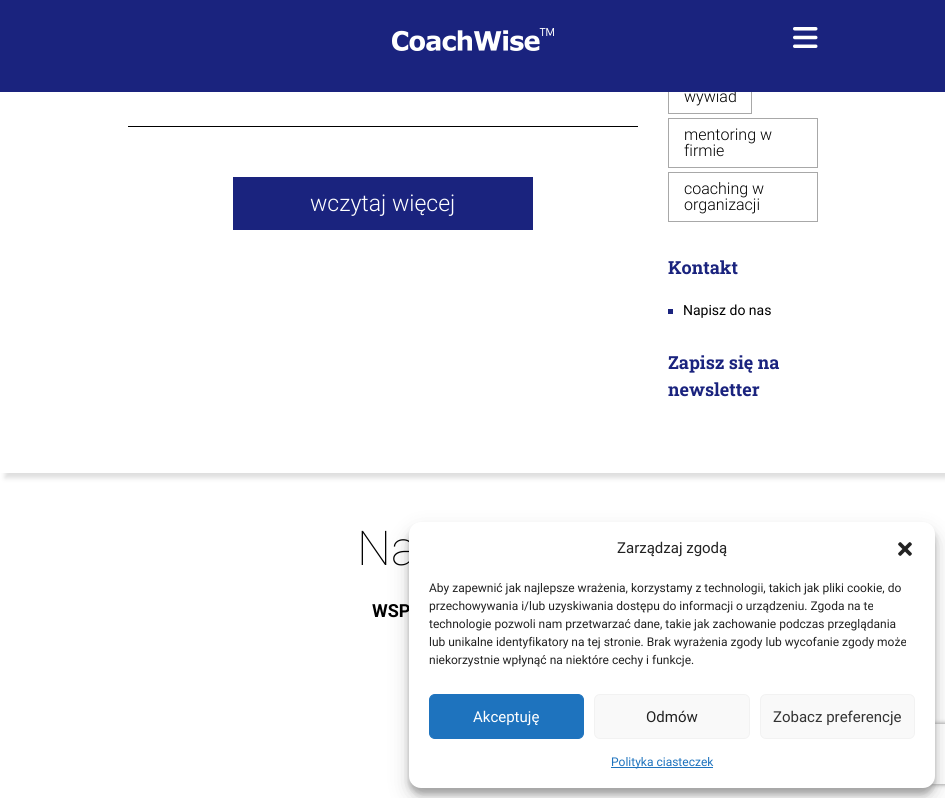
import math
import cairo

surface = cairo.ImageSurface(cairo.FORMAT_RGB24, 945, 798)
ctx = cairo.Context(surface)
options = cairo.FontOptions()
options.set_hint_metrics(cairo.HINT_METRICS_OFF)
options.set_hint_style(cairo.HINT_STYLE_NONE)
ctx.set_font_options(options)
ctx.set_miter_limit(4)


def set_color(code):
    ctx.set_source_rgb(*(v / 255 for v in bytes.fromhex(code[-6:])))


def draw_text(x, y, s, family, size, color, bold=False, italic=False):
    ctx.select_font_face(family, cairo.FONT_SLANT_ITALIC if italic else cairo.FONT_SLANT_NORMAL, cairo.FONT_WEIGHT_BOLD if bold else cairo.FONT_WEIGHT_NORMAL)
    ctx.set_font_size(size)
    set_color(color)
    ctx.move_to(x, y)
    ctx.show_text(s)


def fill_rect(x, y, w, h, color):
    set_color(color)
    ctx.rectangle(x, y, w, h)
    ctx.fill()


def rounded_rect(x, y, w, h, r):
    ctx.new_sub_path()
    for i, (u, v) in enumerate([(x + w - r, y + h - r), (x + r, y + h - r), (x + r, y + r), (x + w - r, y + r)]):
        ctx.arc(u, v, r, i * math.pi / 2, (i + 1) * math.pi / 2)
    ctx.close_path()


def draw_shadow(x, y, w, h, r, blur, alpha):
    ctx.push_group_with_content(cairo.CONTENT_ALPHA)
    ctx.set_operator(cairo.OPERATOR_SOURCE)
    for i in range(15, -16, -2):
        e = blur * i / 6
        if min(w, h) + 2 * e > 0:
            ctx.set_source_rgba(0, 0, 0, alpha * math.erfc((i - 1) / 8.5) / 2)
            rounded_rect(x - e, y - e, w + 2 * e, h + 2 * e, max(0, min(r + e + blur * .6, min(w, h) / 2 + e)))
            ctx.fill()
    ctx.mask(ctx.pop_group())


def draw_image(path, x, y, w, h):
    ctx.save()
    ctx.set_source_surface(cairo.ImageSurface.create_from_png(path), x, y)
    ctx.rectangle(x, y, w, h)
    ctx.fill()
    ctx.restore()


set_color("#ffffff")
ctx.paint()
ctx.save()
ctx.rectangle(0, 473, 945, 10)
ctx.clip()
set_color("#dedede")
draw_shadow(5, -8, 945, 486, 0, 2.5, 1)
ctx.restore()
ctx.rectangle(668.5, 80.5, 83, 33)
set_color("#a8a8a8")
ctx.set_line_width(1)
ctx.stroke()
draw_text(684, 102, "wywiad", "Roboto Light", 16, "#000000")
fill_rect(0, 0, 945, 92, "#1a237e")
draw_image("assets/img1.png", 392, 28, 162, 23)
draw_image("assets/img2.png", 793, 27, 25, 21)
fill_rect(128, 126, 510, 1, "#000000")
fill_rect(233, 177, 300, 53, "#1a237e")
draw_text(310, 211, "wczytaj więcej", "Roboto Light", 23, "#ffffff")
ctx.rectangle(668.5, 118.5, 149, 49)
set_color("#a8a8a8")
ctx.stroke()
draw_text(684, 140, "mentoring w", "Roboto Light", 16, "#000000")
draw_text(684, 156, "firmie", "Roboto Light", 16, "#000000")
ctx.rectangle(668.5, 172.5, 149, 49)
set_color("#a8a8a8")
ctx.stroke()
draw_text(684, 194, "coaching w", "Roboto Light", 16, "#000000")
draw_text(684, 210, "organizacji", "Roboto Light", 16, "#000000")
draw_text(668, 274, "Kontakt", "Roboto Slab", 18, "#1a237e", bold=True)
fill_rect(668, 309, 5, 5, "#1a237e")
draw_text(683, 315, "Napisz do nas", "Roboto", 14, "#000000")
draw_text(668, 369, "Zapisz się na", "Roboto Slab", 18, "#1a237e", bold=True)
draw_text(668, 396, "newsletter", "Roboto Slab", 18, "#1a237e", bold=True)
draw_text(357, 565, "Na", "Roboto Thin", 48, "#000000")
draw_text(372, 617, "WSP", "Roboto", 18, "#000000", bold=True)
set_color("#000000")
draw_shadow(409, 528, 526, 266, 12, 3, 0.23)
draw_shadow(409, 532, 526, 266, 12, 10, 0.19)
ctx.save()
ctx.set_fill_rule(cairo.FILL_RULE_EVEN_ODD)
ctx.new_path()
ctx.move_to(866, 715)
ctx.line_to(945, 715)
ctx.line_to(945, 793)
ctx.line_to(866, 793)
ctx.close_path()
ctx.move_to(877, 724)
ctx.line_to(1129, 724)
ctx.curve_to(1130, 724, 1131, 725, 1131, 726)
ctx.line_to(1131, 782)
ctx.curve_to(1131, 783, 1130, 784, 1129, 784)
ctx.line_to(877, 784)
ctx.curve_to(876, 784, 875, 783, 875, 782)
ctx.line_to(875, 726)
ctx.curve_to(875, 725, 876, 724, 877, 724)
ctx.close_path()
ctx.clip()
set_color("#808080")
draw_shadow(875, 724, 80, 60, 2, 2.5, 1)
ctx.restore()
set_color("#ffffff")
rounded_rect(409, 522, 526, 266, 12)
ctx.fill()
draw_text(617, 553, "Zarządzaj zgodą", "Roboto", 15, "#222222")
draw_image("assets/img3.png", 898, 542, 14, 14)
draw_text(429, 592, "Aby zapewnić jak najlepsze wrażenia, korzystamy z technologii, takich jak pliki cookie, do", "Roboto", 12, "#222222")
draw_text(429, 610, "przechowywania i/lub uzyskiwania dostępu do informacji o urządzeniu. Zgoda na te", "Roboto", 12, "#222222")
draw_text(429, 628, "technologie pozwoli nam przetwarzać dane, takie jak zachowanie podczas przeglądania", "Roboto", 12, "#222222")
draw_text(429, 646, "lub unikalne identyfikatory na tej stronie. Brak wyrażenia zgody lub wycofanie zgody może", "Roboto", 12, "#222222")
draw_text(429, 664, "niekorzystnie wpłynąć na niektóre cechy i funkcje.", "Roboto", 12, "#222222")
set_color("#1e73be")
rounded_rect(429.5, 694.5, 154, 44, 5.5)
ctx.fill_preserve()
ctx.stroke()
draw_text(473, 722, "Akceptuję", "Roboto", 15, "#ffffff")
set_color("#f9f9f9")
rounded_rect(594.5, 694.5, 155, 44, 5.5)
ctx.fill_preserve()
set_color("#f2f2f2")
ctx.stroke()
draw_text(646, 722, "Odmów", "Roboto", 15, "#222222")
set_color("#f9f9f9")
rounded_rect(760.5, 694.5, 154, 44, 5.5)
ctx.fill_preserve()
set_color("#f2f2f2")
ctx.stroke()
draw_text(773, 722, "Zobacz preferencje", "Roboto", 15, "#333333")
fill_rect(611, 767, 102, 1, "#1e73be")
draw_text(611, 766, "Polityka ciasteczek", "Roboto", 12, "#1e73be")
surface.write_to_png("output.png")
